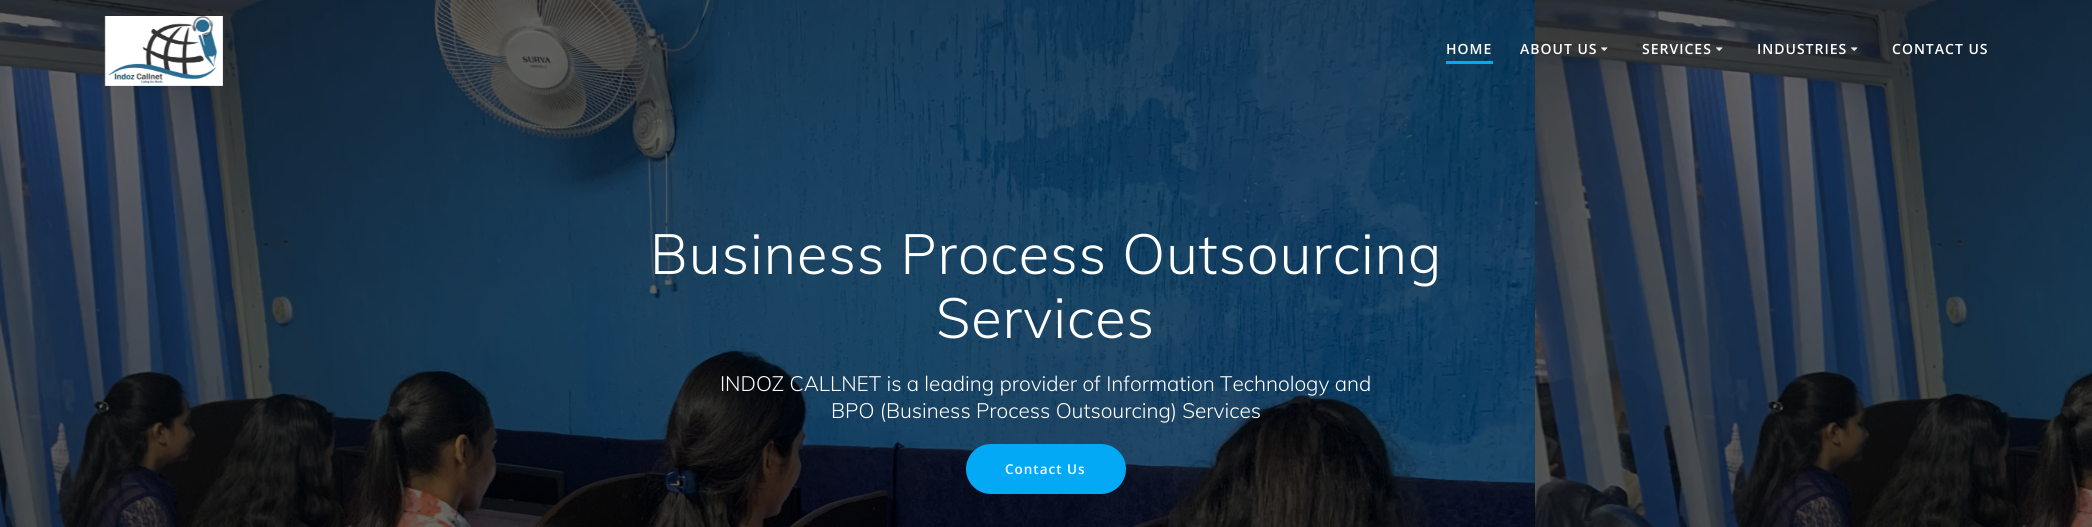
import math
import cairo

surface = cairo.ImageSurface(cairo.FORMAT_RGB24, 2092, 527)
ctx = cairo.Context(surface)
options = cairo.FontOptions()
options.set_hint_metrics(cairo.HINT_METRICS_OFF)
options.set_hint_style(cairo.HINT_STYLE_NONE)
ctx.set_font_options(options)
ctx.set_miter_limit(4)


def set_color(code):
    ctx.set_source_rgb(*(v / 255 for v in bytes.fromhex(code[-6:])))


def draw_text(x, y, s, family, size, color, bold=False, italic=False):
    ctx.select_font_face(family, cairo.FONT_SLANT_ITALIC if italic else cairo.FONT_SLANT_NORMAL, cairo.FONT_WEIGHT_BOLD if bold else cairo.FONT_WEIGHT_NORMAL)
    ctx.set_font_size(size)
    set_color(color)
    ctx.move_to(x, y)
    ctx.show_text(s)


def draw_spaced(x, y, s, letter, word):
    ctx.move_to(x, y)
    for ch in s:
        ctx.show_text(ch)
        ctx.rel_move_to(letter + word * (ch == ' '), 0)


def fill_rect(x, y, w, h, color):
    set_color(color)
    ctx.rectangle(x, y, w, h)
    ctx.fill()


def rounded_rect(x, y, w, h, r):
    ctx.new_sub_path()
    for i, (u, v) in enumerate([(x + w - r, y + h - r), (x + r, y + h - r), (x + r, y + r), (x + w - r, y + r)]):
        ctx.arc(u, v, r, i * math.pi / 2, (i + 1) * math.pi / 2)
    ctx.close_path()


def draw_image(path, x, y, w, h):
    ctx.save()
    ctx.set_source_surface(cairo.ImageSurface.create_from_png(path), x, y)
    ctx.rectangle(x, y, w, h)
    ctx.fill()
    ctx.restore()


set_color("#ffffff")
ctx.paint()
draw_image("assets/img5.png", 0, 0, 2092, 527)
draw_image("assets/img1.png", 104, 16, 119, 70)
fill_rect(1446, 61, 47, 3, "#03a9f4")
ctx.select_font_face("Open Sans SemiBold")
ctx.set_font_size(14)
set_color("#ffffff")
draw_spaced(1446, 54, "HOME", 1, 0)
draw_spaced(1520, 54, "ABOUT US", 1, 0)
draw_image("assets/img2.png", 1601, 47, 7, 4)
draw_spaced(1642, 54, "SERVICES", 1, 0)
draw_image("assets/img3.png", 1716, 47, 7, 4)
draw_spaced(1757, 54, "INDUSTRIES", 1, 0)
draw_image("assets/img4.png", 1851, 47, 7, 4)
draw_spaced(1892, 54, "CONTACT US", 1, 0)
ctx.select_font_face("Muli Light")
ctx.set_font_size(56)
draw_spaced(650, 274, "Business Process Outsourcing", 0.9, 0)
draw_spaced(936, 338, "Services", 0.9, 0)
draw_text(720, 391, "INDOZ CALLNET is a leading provider of Information Technology and", "Muli Light", 20.8, "#ffffff")
draw_text(831, 418, "BPO (Business Process Outsourcing) Services", "Muli Light", 20.8, "#ffffff")
set_color("#03a9f4")
rounded_rect(967, 445, 158, 48, 24)
ctx.fill_preserve()
ctx.stroke()
ctx.select_font_face("Open Sans SemiBold")
ctx.set_font_size(13.5)
set_color("#ffffff")
draw_spaced(1005, 474, "Contact Us", 1, 0)
surface.write_to_png("output.png")
